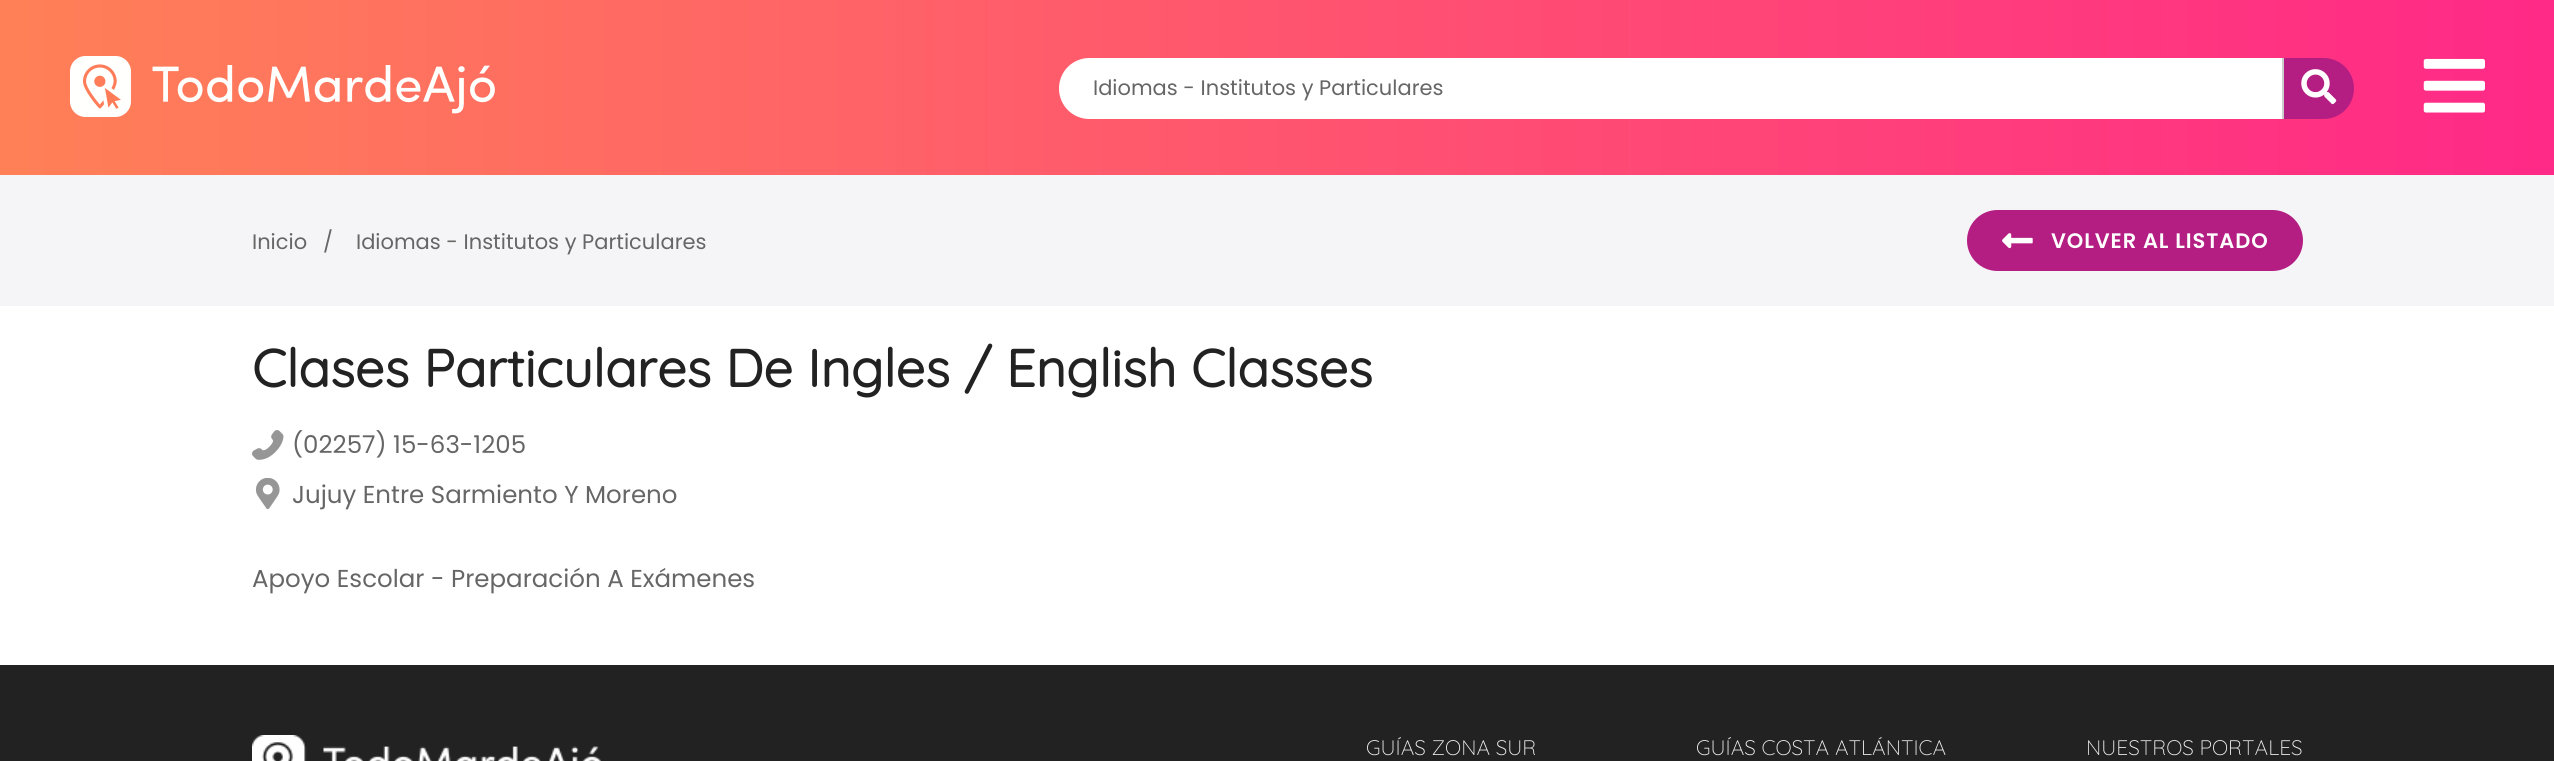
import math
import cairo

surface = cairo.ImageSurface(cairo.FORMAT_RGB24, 2554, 761)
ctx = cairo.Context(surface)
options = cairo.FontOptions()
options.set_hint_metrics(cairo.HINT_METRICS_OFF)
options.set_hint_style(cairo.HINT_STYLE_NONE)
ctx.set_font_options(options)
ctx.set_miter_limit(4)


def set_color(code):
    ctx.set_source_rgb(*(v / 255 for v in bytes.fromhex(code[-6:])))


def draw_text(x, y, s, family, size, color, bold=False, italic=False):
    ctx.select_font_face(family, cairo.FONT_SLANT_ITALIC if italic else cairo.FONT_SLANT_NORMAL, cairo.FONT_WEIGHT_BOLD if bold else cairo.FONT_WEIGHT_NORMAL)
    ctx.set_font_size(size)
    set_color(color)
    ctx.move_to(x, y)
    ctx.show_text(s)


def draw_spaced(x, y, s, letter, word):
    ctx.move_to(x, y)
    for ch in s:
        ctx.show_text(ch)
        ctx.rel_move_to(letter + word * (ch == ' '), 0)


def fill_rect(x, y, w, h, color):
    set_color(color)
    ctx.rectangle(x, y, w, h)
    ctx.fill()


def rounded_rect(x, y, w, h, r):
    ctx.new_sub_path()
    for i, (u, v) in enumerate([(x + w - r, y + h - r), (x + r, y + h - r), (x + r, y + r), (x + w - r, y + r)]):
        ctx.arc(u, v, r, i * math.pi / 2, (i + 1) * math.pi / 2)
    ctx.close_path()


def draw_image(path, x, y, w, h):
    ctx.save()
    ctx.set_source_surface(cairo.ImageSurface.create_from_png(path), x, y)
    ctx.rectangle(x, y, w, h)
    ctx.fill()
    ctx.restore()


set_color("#ffffff")
ctx.paint()
gradient = cairo.LinearGradient(0, 88, 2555, 87)
gradient.add_color_stop_rgba(0, 1, 0.502, 0.341, 1)
gradient.add_color_stop_rgba(1, 1, 0.161, 0.529, 1)
ctx.set_source(gradient)
ctx.rectangle(0, 0, 2554, 175)
ctx.fill()
draw_image("assets/img1.png", 70, 56, 425, 61)
set_color("#ffffff")
ctx.new_path()
ctx.move_to(1089.5, 58)
ctx.line_to(2284, 58)
ctx.line_to(2284, 119)
ctx.line_to(1089.5, 119)
ctx.curve_to(1072.5, 119, 1059, 105.5, 1059, 88.5)
ctx.curve_to(1059, 71.5, 1072.5, 58, 1089.5, 58)
ctx.close_path()
ctx.fill()
fill_rect(2282, 58, 2, 61, "#cccccc")
draw_text(1093, 95, "Idiomas - Institutos y Particulares", "Poppins", 21, "#666666")
set_color("#b41e82")
ctx.new_path()
ctx.move_to(2284, 58)
ctx.line_to(2323.5, 58)
ctx.curve_to(2340.5, 58, 2354, 71.5, 2354, 88.5)
ctx.curve_to(2354, 105.5, 2340.5, 119, 2323.5, 119)
ctx.line_to(2284, 119)
ctx.close_path()
ctx.fill()
draw_image("assets/img2.png", 2301, 69, 36, 36)
draw_image("assets/img3.png", 2423, 58, 62, 55)
fill_rect(0, 175, 2554, 131, "#f5f4f7")
draw_text(252, 249, "Inicio", "Poppins", 21, "#666666")
draw_text(323, 249, "/", "Poppins", 21, "#666666")
draw_text(356, 249, "Idiomas - Institutos y Particulares", "Poppins", 21, "#666666")
set_color("#b41e82")
rounded_rect(1967, 210, 336, 61, 30.5)
ctx.fill()
draw_image("assets/img4.png", 2002, 233, 31, 16)
ctx.select_font_face("Poppins SemiBold")
set_color("#ffffff")
draw_spaced(2051, 248, "VOLVER AL LISTADO", 0.9, 0)
draw_text(252, 387, "Clases Particulares De Ingles / English Classes", "Quicksand", 52.5, "#222222", bold=True)
draw_image("assets/img5.png", 252, 430, 32, 30)
draw_text(292, 453, "(02257) 15-63-1205", "Poppins", 24.5, "#666666")
draw_image("assets/img6.png", 255, 478, 25, 31)
draw_text(292, 503, "Jujuy Entre Sarmiento Y Moreno", "Poppins", 24.5, "#666666")
draw_text(252, 587, "Apoyo Escolar - Preparación A Exámenes", "Poppins", 24.5, "#666666")
fill_rect(0, 665, 2554, 96, "#222222")
draw_image("assets/img7.png", 252, 735, 349, 26)
draw_text(1366, 755, "GUÍAS ZONA SUR", "Quicksand Light", 21, "#f1f1f1")
draw_text(1696, 755, "GUÍAS COSTA ATLÁNTICA", "Quicksand Light", 21, "#f1f1f1")
draw_text(2086, 755, "NUESTROS PORTALES", "Quicksand Light", 21, "#f1f1f1")
surface.write_to_png("output.png")
